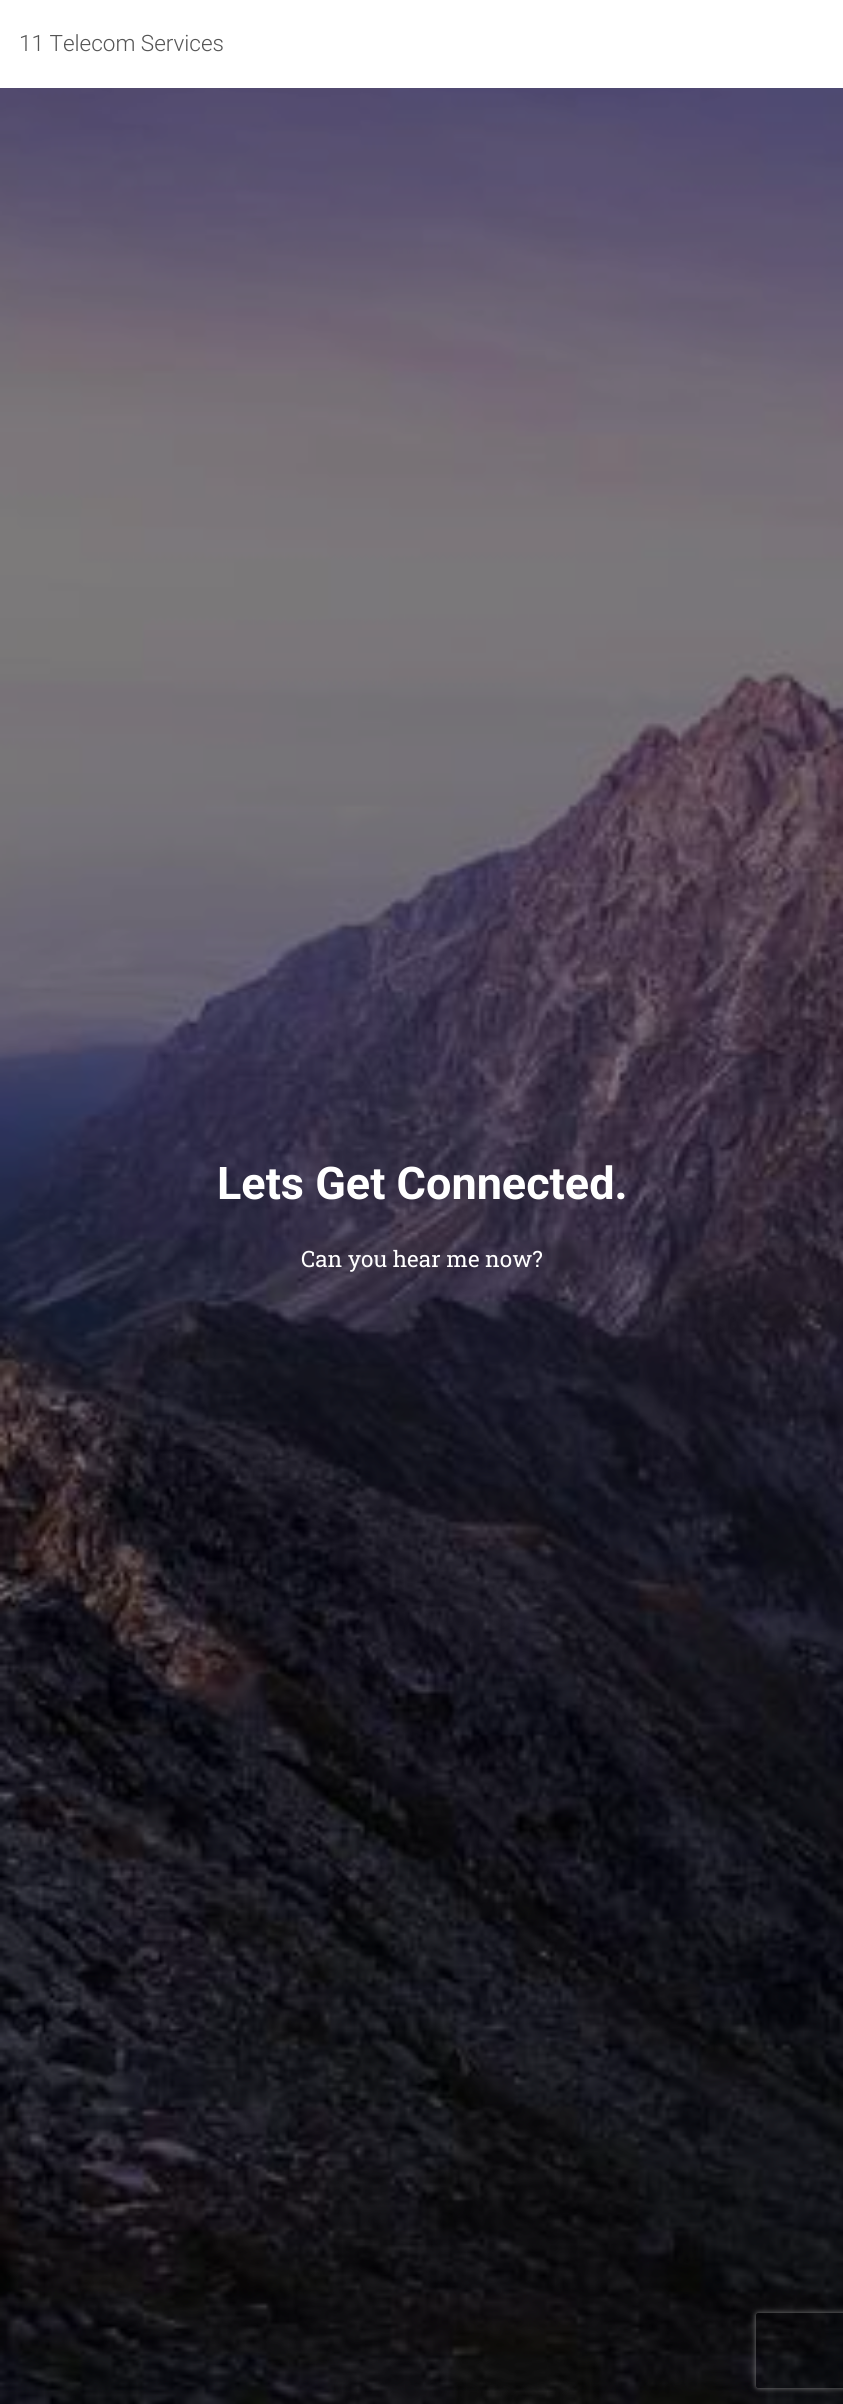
import math
import cairo

surface = cairo.ImageSurface(cairo.FORMAT_RGB24, 843, 2404)
ctx = cairo.Context(surface)
options = cairo.FontOptions()
options.set_hint_metrics(cairo.HINT_METRICS_OFF)
options.set_hint_style(cairo.HINT_STYLE_NONE)
ctx.set_font_options(options)
ctx.set_miter_limit(4)


def set_color(code):
    ctx.set_source_rgb(*(v / 255 for v in bytes.fromhex(code[-6:])))


def draw_text(x, y, s, family, size, color, bold=False, italic=False):
    ctx.select_font_face(family, cairo.FONT_SLANT_ITALIC if italic else cairo.FONT_SLANT_NORMAL, cairo.FONT_WEIGHT_BOLD if bold else cairo.FONT_WEIGHT_NORMAL)
    ctx.set_font_size(size)
    set_color(color)
    ctx.move_to(x, y)
    ctx.show_text(s)


def rounded_rect(x, y, w, h, r):
    ctx.new_sub_path()
    for i, (u, v) in enumerate([(x + w - r, y + h - r), (x + r, y + h - r), (x + r, y + r), (x + w - r, y + r)]):
        ctx.arc(u, v, r, i * math.pi / 2, (i + 1) * math.pi / 2)
    ctx.close_path()


def draw_shadow(x, y, w, h, r, blur, alpha):
    ctx.push_group_with_content(cairo.CONTENT_ALPHA)
    ctx.set_operator(cairo.OPERATOR_SOURCE)
    for i in range(15, -16, -2):
        e = blur * i / 6
        if min(w, h) + 2 * e > 0:
            ctx.set_source_rgba(0, 0, 0, alpha * math.erfc((i - 1) / 8.5) / 2)
            rounded_rect(x - e, y - e, w + 2 * e, h + 2 * e, max(0, min(r + e + blur * .6, min(w, h) / 2 + e)))
            ctx.fill()
    ctx.mask(ctx.pop_group())


def draw_image(path, x, y, w, h):
    ctx.save()
    ctx.set_source_surface(cairo.ImageSurface.create_from_png(path), x, y)
    ctx.rectangle(x, y, w, h)
    ctx.fill()
    ctx.restore()


set_color("#ffffff")
ctx.paint()
draw_text(19, 51, "11 Telecom Services", "Roboto Light", 22.5, "#555555")
draw_image("assets/img1.png", 0, 88, 843, 2316)
draw_text(217, 1199, "Lets Get Connected.", "Roboto", 45, "#ffffff", bold=True)
draw_text(301, 1267, "Can you hear me now?", "Roboto Slab", 22.5, "#ffffff")
ctx.save()
ctx.set_fill_rule(cairo.FILL_RULE_EVEN_ODD)
ctx.new_path()
ctx.move_to(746, 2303)
ctx.line_to(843, 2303)
ctx.line_to(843, 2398)
ctx.line_to(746, 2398)
ctx.close_path()
ctx.move_to(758.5, 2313)
ctx.line_to(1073.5, 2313)
ctx.curve_to(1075, 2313, 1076, 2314, 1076, 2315.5)
ctx.line_to(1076, 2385.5)
ctx.curve_to(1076, 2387, 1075, 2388, 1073.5, 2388)
ctx.line_to(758.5, 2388)
ctx.curve_to(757, 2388, 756, 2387, 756, 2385.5)
ctx.line_to(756, 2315.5)
ctx.curve_to(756, 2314, 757, 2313, 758.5, 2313)
ctx.close_path()
ctx.clip()
set_color("#808080")
draw_shadow(756, 2313, 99, 75, 2.5, 3, 1)
ctx.restore()
surface.write_to_png("output.png")
